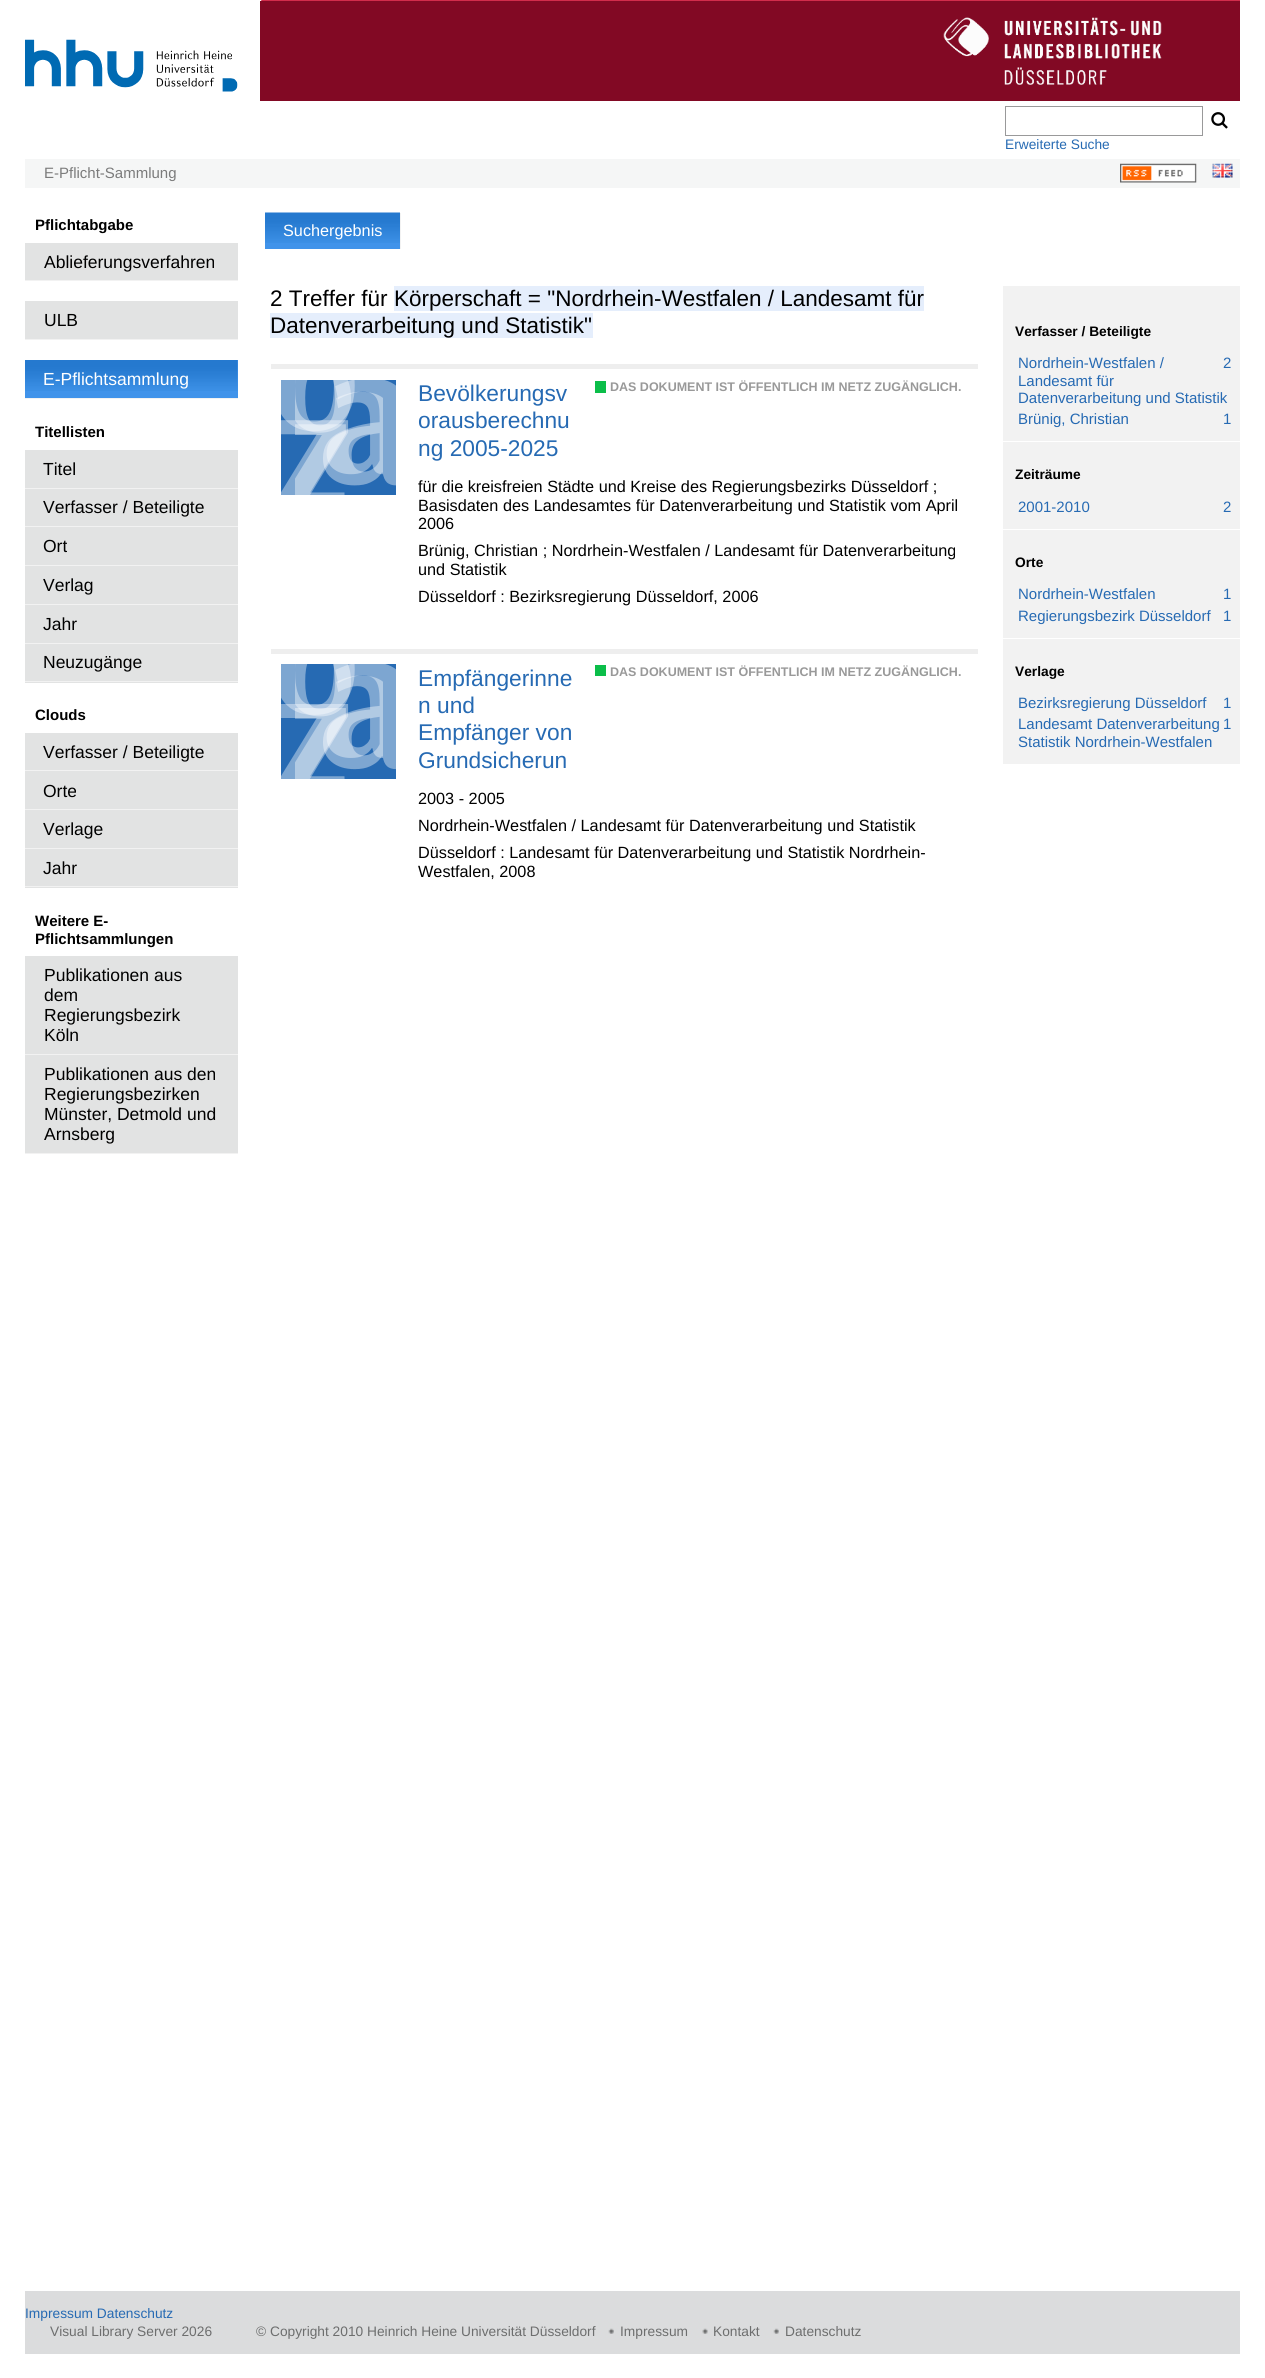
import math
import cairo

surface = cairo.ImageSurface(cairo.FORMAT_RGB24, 1265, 2378)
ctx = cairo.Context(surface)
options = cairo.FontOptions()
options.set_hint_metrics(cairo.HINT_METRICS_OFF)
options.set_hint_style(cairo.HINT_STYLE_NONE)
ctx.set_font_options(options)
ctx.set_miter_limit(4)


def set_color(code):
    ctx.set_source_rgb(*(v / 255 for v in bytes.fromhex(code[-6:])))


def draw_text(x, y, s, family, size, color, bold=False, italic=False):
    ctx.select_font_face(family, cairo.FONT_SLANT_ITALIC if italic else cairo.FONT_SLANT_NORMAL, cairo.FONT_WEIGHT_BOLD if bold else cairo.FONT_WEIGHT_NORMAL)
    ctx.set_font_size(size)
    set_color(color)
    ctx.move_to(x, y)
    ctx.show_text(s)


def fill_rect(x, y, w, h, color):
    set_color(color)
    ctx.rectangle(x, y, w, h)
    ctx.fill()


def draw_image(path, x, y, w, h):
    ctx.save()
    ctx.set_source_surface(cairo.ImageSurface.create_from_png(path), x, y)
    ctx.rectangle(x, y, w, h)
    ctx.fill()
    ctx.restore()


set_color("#ffffff")
ctx.paint()
draw_image("assets/img1.png", 261, 0, 979, 1)
draw_image("assets/img2.png", 25, 39, 213, 53)
fill_rect(260, 1, 980, 100, "#820924")
draw_image("assets/img3.png", 943, 17, 219, 68)
ctx.rectangle(1005.5, 106.5, 197, 29)
set_color("#99999a")
ctx.set_line_width(1)
ctx.stroke()
draw_image("assets/img4.png", 1211, 112, 17, 17)
draw_text(1005, 149, "Erweiterte Suche", "Liberation Sans", 13.75, "#266ab3")
fill_rect(25, 159, 1215, 29, "#f5f6f6")
draw_text(44, 178, "E-Pflicht-Sammlung", "Liberation Sans", 15, "#7b7b7b")
draw_image("assets/img5.png", 1120, 163, 77, 20)
draw_image("assets/img6.png", 1212, 163, 21, 15)
draw_text(35, 230, "Pflichtabgabe", "Liberation Sans", 15, "#000000", bold=True)
fill_rect(25, 243, 213, 37, "#e2e3e3")
fill_rect(25, 280, 213, 1, "#f2f2f2")
draw_text(44, 268, "Ablieferungsverfahren", "Liberation Sans", 17.5, "#000000")
fill_rect(25, 301, 213, 38, "#e2e3e3")
fill_rect(25, 339, 213, 1, "#f2f2f2")
draw_text(44, 326, "ULB", "Liberation Sans", 17.5, "#000000")
fill_rect(25, 360, 213, 38, "#4093ea")
draw_image("assets/img7.png", 25, 360, 213, 31)
fill_rect(25, 398, 213, 1, "#f2f2f2")
draw_text(43, 385, "E-Pflichtsammlung", "Liberation Sans", 17.5, "#ffffff")
draw_text(35, 437, "Titellisten", "Liberation Sans", 15, "#000000", bold=True)
fill_rect(25, 450, 213, 38, "#e2e3e3")
fill_rect(25, 488, 213, 1, "#f2f2f2")
draw_text(43, 475, "Titel", "Liberation Sans", 17.5, "#000000")
fill_rect(25, 489, 213, 76, "#e2e3e3")
fill_rect(25, 526, 213, 1, "#f2f2f2")
draw_text(43, 513, "Verfasser / Beteiligte", "Liberation Sans", 17.5, "#000000")
fill_rect(25, 565, 213, 1, "#f2f2f2")
draw_text(43, 552, "Ort", "Liberation Sans", 17.5, "#000000")
fill_rect(25, 566, 213, 38, "#e2e3e3")
fill_rect(25, 604, 213, 1, "#f2f2f2")
draw_text(43, 591, "Verlag", "Liberation Sans", 17.5, "#000000")
fill_rect(25, 605, 213, 38, "#e2e3e3")
fill_rect(25, 643, 213, 1, "#f2f2f2")
draw_text(43, 630, "Jahr", "Liberation Sans", 17.5, "#000000")
fill_rect(25, 644, 213, 39, "#e2e3e3")
fill_rect(25, 681, 213, 1, "#f2f2f2")
draw_text(43, 668, "Neuzugänge", "Liberation Sans", 17.5, "#000000")
draw_text(35, 720, "Clouds", "Liberation Sans", 15, "#000000", bold=True)
fill_rect(25, 733, 213, 37, "#e2e3e3")
fill_rect(25, 770, 213, 1, "#f2f2f2")
draw_text(43, 758, "Verfasser / Beteiligte", "Liberation Sans", 17.5, "#000000")
fill_rect(25, 771, 213, 38, "#e2e3e3")
fill_rect(25, 809, 213, 1, "#f2f2f2")
draw_text(43, 797, "Orte", "Liberation Sans", 17.5, "#000000")
fill_rect(25, 810, 213, 38, "#e2e3e3")
fill_rect(25, 848, 213, 1, "#f2f2f2")
draw_text(43, 835, "Verlage", "Liberation Sans", 17.5, "#000000")
fill_rect(25, 849, 213, 39, "#e2e3e3")
fill_rect(25, 886, 213, 1, "#f2f2f2")
draw_text(43, 874, "Jahr", "Liberation Sans", 17.5, "#000000")
draw_text(35, 926, "Weitere E-", "Liberation Sans", 15, "#000000", bold=True)
draw_text(35, 944, "Pflichtsammlungen", "Liberation Sans", 15, "#000000", bold=True)
fill_rect(25, 956, 213, 98, "#e2e3e3")
fill_rect(25, 1054, 213, 1, "#f2f2f2")
draw_text(44, 981, "Publikationen aus", "Liberation Sans", 17.5, "#000000")
draw_text(44, 1001, "dem", "Liberation Sans", 17.5, "#000000")
draw_text(44, 1021, "Regierungsbezirk", "Liberation Sans", 17.5, "#000000")
draw_text(44, 1041, "Köln", "Liberation Sans", 17.5, "#000000")
fill_rect(25, 1055, 213, 98, "#e2e3e3")
fill_rect(25, 1153, 213, 1, "#f2f2f2")
draw_text(44, 1080, "Publikationen aus den", "Liberation Sans", 17.5, "#000000")
draw_text(44, 1100, "Regierungsbezirken", "Liberation Sans", 17.5, "#000000")
draw_text(44, 1120, "Münster, Detmold und", "Liberation Sans", 17.5, "#000000")
draw_text(44, 1140, "Arnsberg", "Liberation Sans", 17.5, "#000000")
fill_rect(400, 213, 1, 36, "#f2f2f2")
fill_rect(265, 243, 135, 6, "#4093ea")
draw_image("assets/img8.png", 265, 212, 135, 31)
draw_text(283, 236, "Suchergebnis", "Liberation Sans", 16.25, "#ffffff")
draw_text(270, 306, "2 Treffer für", "Liberation Sans", 22.5, "#000000")
fill_rect(394, 286, 530, 25, "#e5eefc")
draw_text(394, 306, "Körperschaft = \"Nordrhein-Westfalen / Landesamt für", "Liberation Sans", 22.5, "#000000")
fill_rect(270, 313, 323, 25, "#e5eefc")
draw_text(270, 333, "Datenverarbeitung und Statistik\"", "Liberation Sans", 22.5, "#000000")
fill_rect(271, 364, 707, 5, "#eeeeee")
fill_rect(281, 380, 115, 115, "#266ab3")
draw_image("assets/img9.png", 281, 380, 115, 115)
draw_image("assets/img10.png", 295, 380, 88, 115)
fill_rect(595, 381, 11, 12, "#0bbe49")
draw_text(610, 391, "DAS DOKUMENT IST ÖFFENTLICH IM NETZ ZUGÄNGLICH.", "Liberation Sans", 12.5, "#999999", bold=True)
draw_text(418, 401, "Bevölkerungsv", "Liberation Sans", 22.75, "#266ab3")
draw_text(418, 428, "orausberechnu", "Liberation Sans", 22.75, "#266ab3")
draw_text(418, 456, "ng 2005-2025", "Liberation Sans", 22.75, "#266ab3")
draw_text(418, 492, "für die kreisfreien Städte und Kreise des Regierungsbezirks Düsseldorf ;", "Liberation Sans", 16.25, "#000000")
draw_text(418, 511, "Basisdaten des Landesamtes für Datenverarbeitung und Statistik vom April", "Liberation Sans", 16.25, "#000000")
draw_text(418, 529, "2006", "Liberation Sans", 16.25, "#000000")
draw_text(418, 556, "Brünig, Christian ; Nordrhein-Westfalen / Landesamt für Datenverarbeitung", "Liberation Sans", 16.25, "#000000")
draw_text(418, 575, "und Statistik", "Liberation Sans", 16.25, "#000000")
draw_text(418, 602, "Düsseldorf : Bezirksregierung Düsseldorf, 2006", "Liberation Sans", 16.25, "#000000")
fill_rect(271, 649, 707, 5, "#eeeeee")
fill_rect(281, 664, 115, 115, "#266ab3")
draw_image("assets/img11.png", 281, 664, 115, 115)
draw_image("assets/img12.png", 295, 664, 88, 115)
fill_rect(595, 665, 11, 11, "#0bbe49")
draw_text(610, 676, "DAS DOKUMENT IST ÖFFENTLICH IM NETZ ZUGÄNGLICH.", "Liberation Sans", 12.5, "#999999", bold=True)
draw_text(418, 686, "Empfängerinne", "Liberation Sans", 22.75, "#266ab3")
draw_text(418, 713, "n und", "Liberation Sans", 22.75, "#266ab3")
draw_text(418, 740, "Empfänger von", "Liberation Sans", 22.75, "#266ab3")
draw_text(418, 768, "Grundsicherun", "Liberation Sans", 22.75, "#266ab3")
draw_text(418, 804, "2003 - 2005", "Liberation Sans", 16.25, "#000000")
draw_text(418, 831, "Nordrhein-Westfalen / Landesamt für Datenverarbeitung und Statistik", "Liberation Sans", 16.25, "#000000")
draw_text(418, 858, "Düsseldorf : Landesamt für Datenverarbeitung und Statistik Nordrhein-", "Liberation Sans", 16.25, "#000000")
draw_text(418, 877, "Westfalen, 2008", "Liberation Sans", 16.25, "#000000")
fill_rect(1003, 286, 237, 478, "#f2f2f2")
draw_text(1015, 336, "Verfasser / Beteiligte", "Liberation Sans", 13.75, "#000000", bold=True)
fill_rect(1003, 441, 237, 1, "#ffffff")
draw_text(1018, 368, "Nordrhein-Westfalen /", "Liberation Sans", 15, "#266ab3")
draw_text(1223, 368, "2", "Liberation Sans", 15, "#266ab3")
draw_text(1018, 386, "Landesamt für", "Liberation Sans", 15, "#266ab3")
draw_text(1018, 403, "Datenverarbeitung und Statistik", "Liberation Sans", 15, "#266ab3")
draw_text(1018, 424, "Brünig, Christian", "Liberation Sans", 15, "#266ab3")
draw_text(1223, 424, "1", "Liberation Sans", 15, "#266ab3")
draw_text(1015, 479, "Zeiträume", "Liberation Sans", 13.75, "#000000", bold=True)
fill_rect(1003, 529, 237, 1, "#ffffff")
draw_text(1018, 512, "2001-2010", "Liberation Sans", 15, "#266ab3")
draw_text(1223, 512, "2", "Liberation Sans", 15, "#266ab3")
draw_text(1015, 567, "Orte", "Liberation Sans", 13.75, "#000000", bold=True)
fill_rect(1003, 638, 237, 1, "#ffffff")
draw_text(1018, 599, "Nordrhein-Westfalen", "Liberation Sans", 15, "#266ab3")
draw_text(1223, 599, "1", "Liberation Sans", 15, "#266ab3")
draw_text(1018, 621, "Regierungsbezirk Düsseldorf", "Liberation Sans", 15, "#266ab3")
draw_text(1223, 621, "1", "Liberation Sans", 15, "#266ab3")
draw_text(1015, 676, "Verlage", "Liberation Sans", 13.75, "#000000", bold=True)
draw_text(1018, 708, "Bezirksregierung Düsseldorf", "Liberation Sans", 15, "#266ab3")
draw_text(1223, 708, "1", "Liberation Sans", 15, "#266ab3")
draw_text(1018, 729, "Landesamt Datenverarbeitung", "Liberation Sans", 15, "#266ab3")
draw_text(1223, 729, "1", "Liberation Sans", 15, "#266ab3")
draw_text(1018, 747, "Statistik Nordrhein-Westfalen", "Liberation Sans", 15, "#266ab3")
fill_rect(25, 2291, 1215, 63, "#dbdcdd")
draw_text(25, 2318, "Impressum Datenschutz", "Liberation Sans", 13.75, "#266ab3")
draw_text(50, 2336, "Visual Library Server 2026", "Liberation Sans", 13.75, "#6d6e6e")
draw_text(256, 2336, "© Copyright 2010 Heinrich Heine Universität Düsseldorf", "Liberation Sans", 13.75, "#6d6e6e")
draw_image("assets/img13.png", 608, 2328, 6, 6)
draw_text(620, 2336, "Impressum", "Liberation Sans", 13.75, "#6d6e6e")
draw_image("assets/img14.png", 702, 2328, 6, 6)
draw_text(713, 2336, "Kontakt", "Liberation Sans", 13.75, "#6d6e6e")
draw_image("assets/img15.png", 773, 2328, 6, 6)
draw_text(785, 2336, "Datenschutz", "Liberation Sans", 13.75, "#6d6e6e")
surface.write_to_png("output.png")
